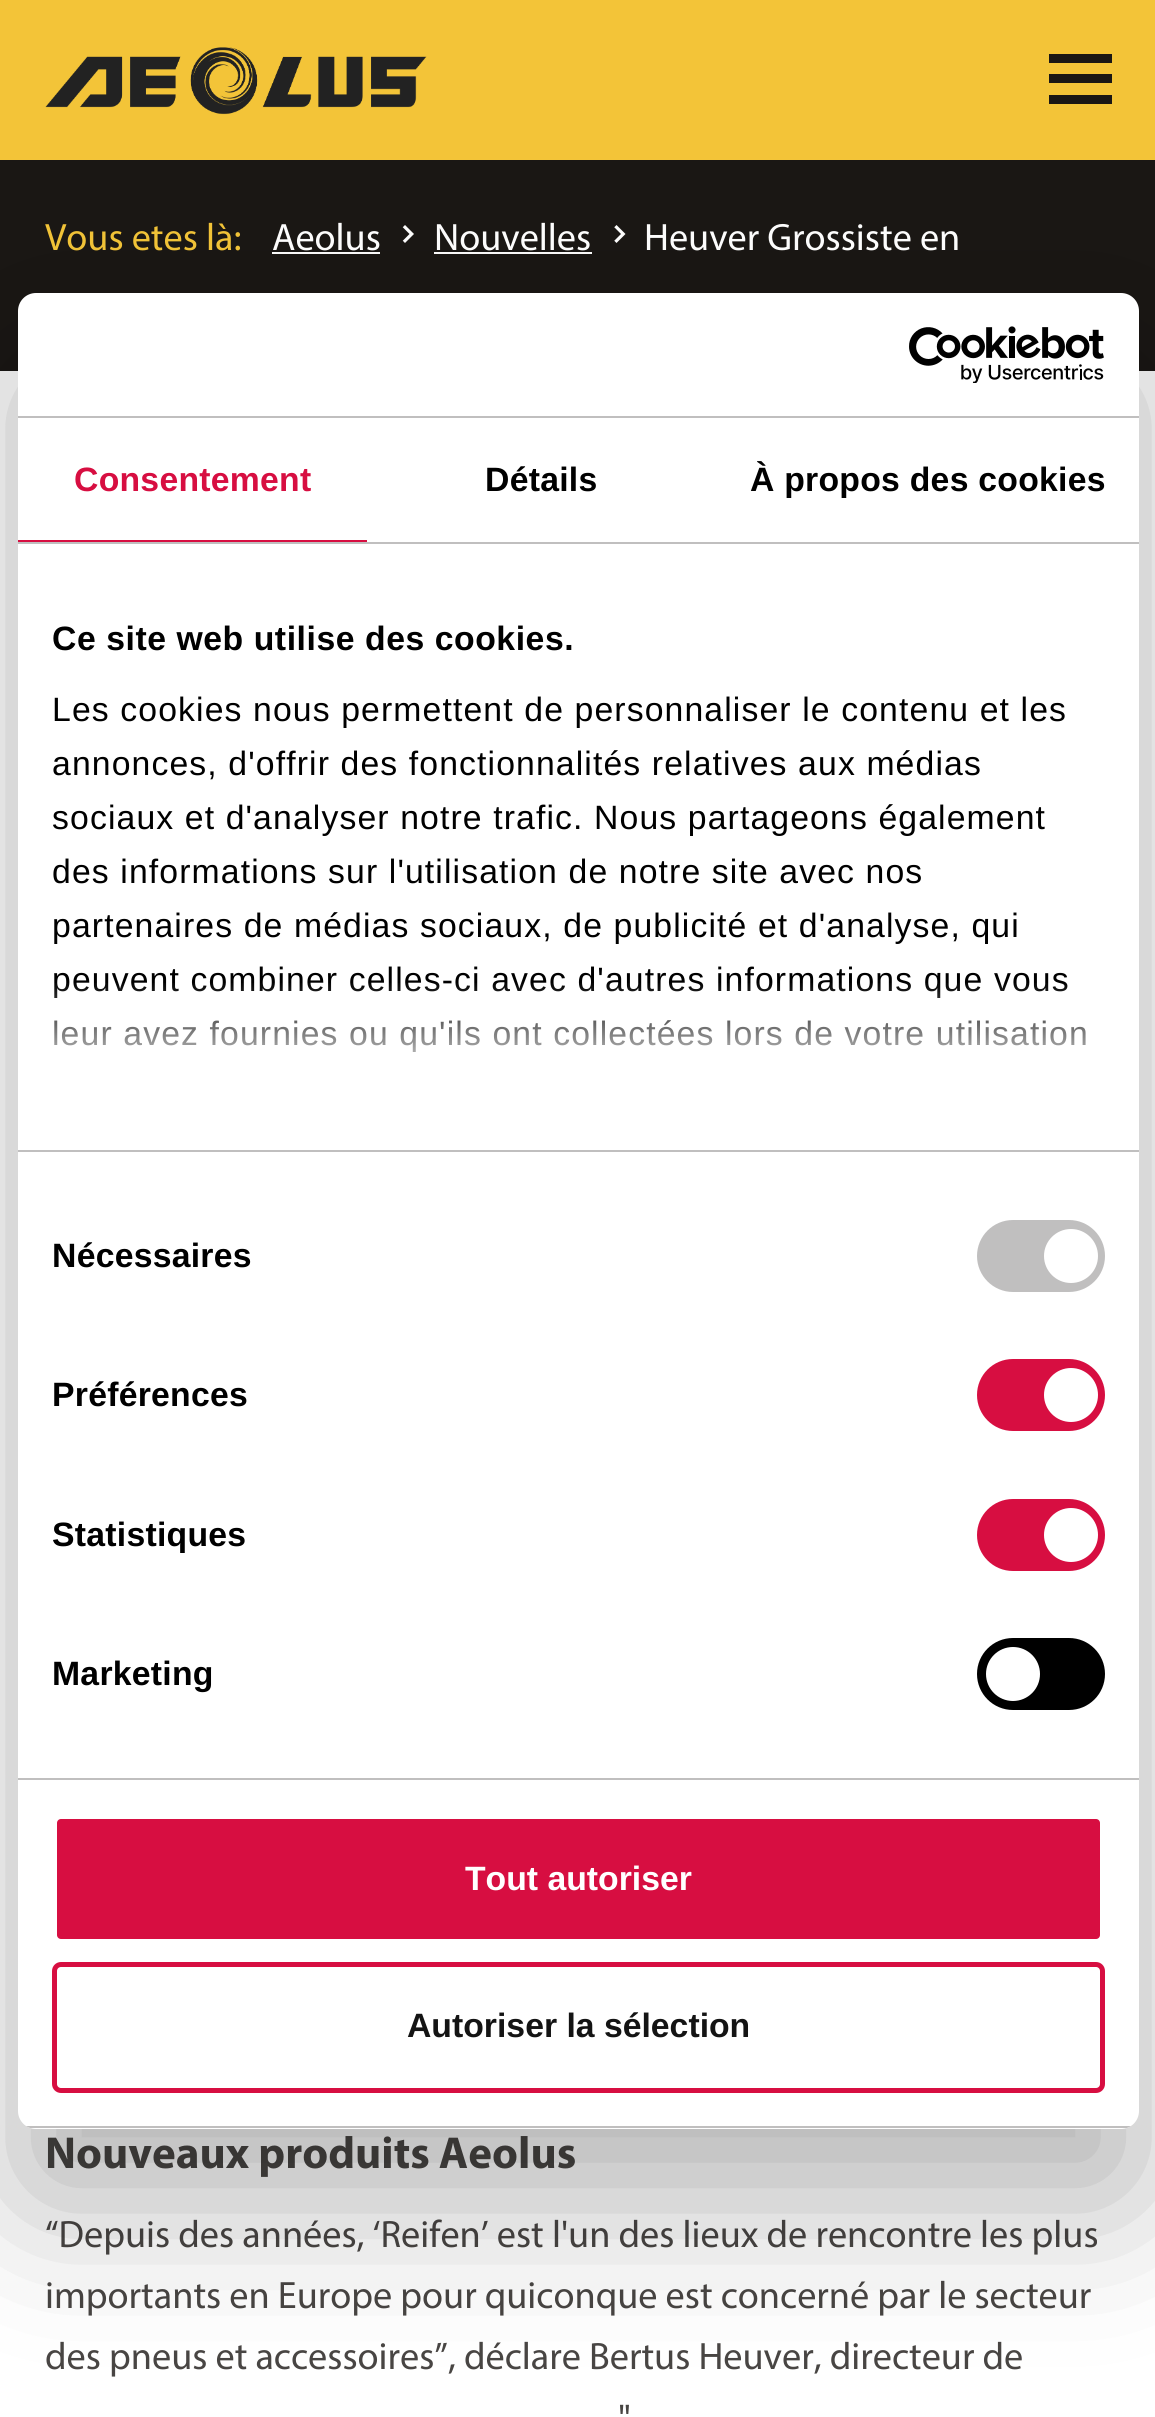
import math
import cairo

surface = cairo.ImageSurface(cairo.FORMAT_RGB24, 1155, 2417)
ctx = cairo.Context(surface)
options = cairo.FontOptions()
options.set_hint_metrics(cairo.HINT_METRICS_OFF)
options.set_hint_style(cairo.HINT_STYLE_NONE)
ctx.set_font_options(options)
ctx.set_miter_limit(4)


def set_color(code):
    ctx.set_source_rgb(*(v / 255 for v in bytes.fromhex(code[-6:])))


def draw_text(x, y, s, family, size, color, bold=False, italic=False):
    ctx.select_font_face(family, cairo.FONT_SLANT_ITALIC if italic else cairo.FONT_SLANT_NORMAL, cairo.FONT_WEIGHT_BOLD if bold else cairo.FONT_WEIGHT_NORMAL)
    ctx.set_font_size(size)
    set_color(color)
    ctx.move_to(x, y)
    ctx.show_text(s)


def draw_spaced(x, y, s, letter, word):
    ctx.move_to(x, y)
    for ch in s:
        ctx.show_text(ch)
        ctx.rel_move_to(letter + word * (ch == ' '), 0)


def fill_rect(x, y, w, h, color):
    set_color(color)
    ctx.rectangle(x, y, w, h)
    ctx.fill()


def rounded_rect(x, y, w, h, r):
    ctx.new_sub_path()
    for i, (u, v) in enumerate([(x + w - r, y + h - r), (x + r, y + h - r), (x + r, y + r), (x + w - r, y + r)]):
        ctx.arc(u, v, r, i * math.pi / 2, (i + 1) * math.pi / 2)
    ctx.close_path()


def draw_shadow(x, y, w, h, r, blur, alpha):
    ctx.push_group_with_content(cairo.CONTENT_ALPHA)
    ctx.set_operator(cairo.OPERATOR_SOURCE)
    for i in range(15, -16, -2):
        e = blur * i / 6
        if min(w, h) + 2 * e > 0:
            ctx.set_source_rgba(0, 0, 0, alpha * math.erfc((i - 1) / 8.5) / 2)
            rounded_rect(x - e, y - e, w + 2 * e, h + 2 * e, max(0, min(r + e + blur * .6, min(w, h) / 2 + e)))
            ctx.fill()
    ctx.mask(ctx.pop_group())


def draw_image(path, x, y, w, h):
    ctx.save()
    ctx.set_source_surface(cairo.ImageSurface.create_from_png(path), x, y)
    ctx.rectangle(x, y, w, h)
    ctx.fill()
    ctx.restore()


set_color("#ffffff")
ctx.paint()
fill_rect(0, 0, 1155, 160, "#f3c438")
draw_image("assets/img1.png", 45, 47, 382, 68)
fill_rect(1049, 54, 63, 9, "#1a1714")
fill_rect(1049, 74, 63, 9, "#1a1714")
fill_rect(1049, 95, 63, 9, "#1a1714")
fill_rect(0, 160, 1155, 211, "#1a1714")
draw_text(45, 250, "Vous etes là:", "Myriad", 38.25, "#f3c438")
draw_text(272, 250, "Aeolus", "Myriad", 38.25, "#ffffff")
fill_rect(272, 252, 108, 2, "#ffffff")
draw_image("assets/img2.png", 402, 225, 12, 18)
draw_text(434, 250, "Nouvelles", "Myriad", 38.25, "#ffffff")
fill_rect(434, 252, 158, 2, "#ffffff")
draw_image("assets/img3.png", 614, 225, 12, 18)
draw_text(644, 250, "Heuver Grossiste en", "Myriad", 38.25, "#ffffff")
draw_text(45, 2168, "Nouveaux produits Aeolus", "Myriad", 45, "#484543", bold=True)
draw_text(45, 2247, "“Depuis des années, ‘Reifen’ est l'un des lieux de rencontre les plus", "Myriad", 38.25, "#484543")
draw_text(45, 2308, "importants en Europe pour quiconque est concerné par le secteur", "Myriad", 38.25, "#484543")
draw_text(45, 2369, "des pneus et accessoires”, déclare Bertus Heuver, directeur de", "Myriad", 38.25, "#484543")
draw_text(618, 2431, "\"", "Myriad", 38.25, "#484543")
set_color("#000000")
draw_shadow(18, 365, 1121, 1836, 18, 76.5, 0.3)
set_color("#ffffff")
rounded_rect(18, 293, 1121, 1836, 18)
ctx.fill()
fill_rect(18, 416, 1121, 2, "#c0bfbf")
draw_image("assets/img4.png", 909, 326, 195, 57)
fill_rect(18, 542, 1121, 2, "#c0bfbf")
fill_rect(18, 540, 349, 2, "#d70e41")
ctx.select_font_face("Liberation Sans", cairo.FONT_SLANT_NORMAL, cairo.FONT_WEIGHT_BOLD)
ctx.set_font_size(33.75)
draw_spaced(74, 491, "Consentement", 0.25, 0)
set_color("#000000")
draw_spaced(485, 491, "Détails", 0.25, 0)
draw_spaced(750, 491, "À propos des cookies", 0.25, 0)
fill_rect(18, 1150, 1121, 2, "#c0bfbf")
set_color("#000000")
draw_spaced(52, 650, "Ce site web utilise des cookies.", 0.55, 0)
ctx.select_font_face("Liberation Sans")
draw_spaced(52, 721, "Les cookies nous permettent de personnaliser le contenu et les", 1.12, 0)
draw_spaced(52, 775, "annonces, d'offrir des fonctionnalités relatives aux médias", 1.12, 0)
draw_spaced(52, 829, "sociaux et d'analyser notre trafic. Nous partageons également", 1.12, 0)
draw_spaced(52, 883, "des informations sur l'utilisation de notre site avec nos", 1.12, 0)
draw_spaced(52, 937, "partenaires de médias sociaux, de publicité et d'analyse, qui", 1.12, 0)
draw_spaced(52, 991, "peuvent combiner celles-ci avec d'autres informations que vous", 1.12, 0)
draw_spaced(52, 1045, "leur avez fournies ou qu'ils ont collectées lors de votre utilisation", 1.12, 0)
gradient = cairo.LinearGradient(564, 1150, 564, 981)
gradient.add_color_stop_rgba(0, 1, 1, 1, 1)
gradient.add_color_stop_rgba(0.5, 1, 1, 1, 0.8)
gradient.add_color_stop_rgba(1, 1, 1, 1, 0)
ctx.set_source(gradient)
ctx.rectangle(54, 983, 1032, 69)
ctx.fill()
fill_rect(18, 1778, 1121, 2, "#c0bfbf")
ctx.select_font_face("Liberation Sans", cairo.FONT_SLANT_NORMAL, cairo.FONT_WEIGHT_BOLD)
set_color("#000000")
draw_spaced(52, 1267, "Nécessaires", 0.25, 0)
set_color("#c0bfbf")
rounded_rect(977, 1220, 128, 72, 36)
ctx.fill()
set_color("#ffffff")
ctx.arc(1071, 1256, 27, 0, 2 * math.pi)
ctx.fill()
set_color("#000000")
draw_spaced(52, 1406, "Préférences", 0.25, 0)
set_color("#d70e41")
rounded_rect(977, 1359, 128, 72, 36)
ctx.fill()
set_color("#ffffff")
ctx.arc(1071, 1395, 27, 0, 2 * math.pi)
ctx.fill()
set_color("#000000")
draw_spaced(52, 1546, "Statistiques", 0.25, 0)
set_color("#d70e41")
rounded_rect(977, 1499, 128, 72, 36)
ctx.fill()
set_color("#ffffff")
ctx.arc(1071, 1535, 27, 0, 2 * math.pi)
ctx.fill()
set_color("#000000")
draw_spaced(52, 1685, "Marketing", 0.25, 0)
rounded_rect(977, 1638, 128, 72, 36)
ctx.fill()
set_color("#ffffff")
ctx.arc(1013, 1674, 27, 0, 2 * math.pi)
ctx.fill()
ctx.save()
rounded_rect(18, 293, 1121, 1836, 18)
ctx.clip()
fill_rect(18, 2126, 1121, 2, "#c0bfbf")
ctx.restore()
set_color("#d70e41")
rounded_rect(54.5, 1816.5, 1048, 125, 6.5)
ctx.fill_preserve()
set_color("#ffffff")
ctx.set_line_width(5)
ctx.stroke()
draw_text(465, 1890, "Tout autoriser", "Liberation Sans", 33.75, "#ffffff", bold=True)
rounded_rect(54.5, 1964.5, 1048, 126, 6.5)
set_color("#d70e41")
ctx.stroke()
draw_text(407, 2037, "Autoriser la sélection", "Liberation Sans", 33.75, "#141414", bold=True)
surface.write_to_png("output.png")
